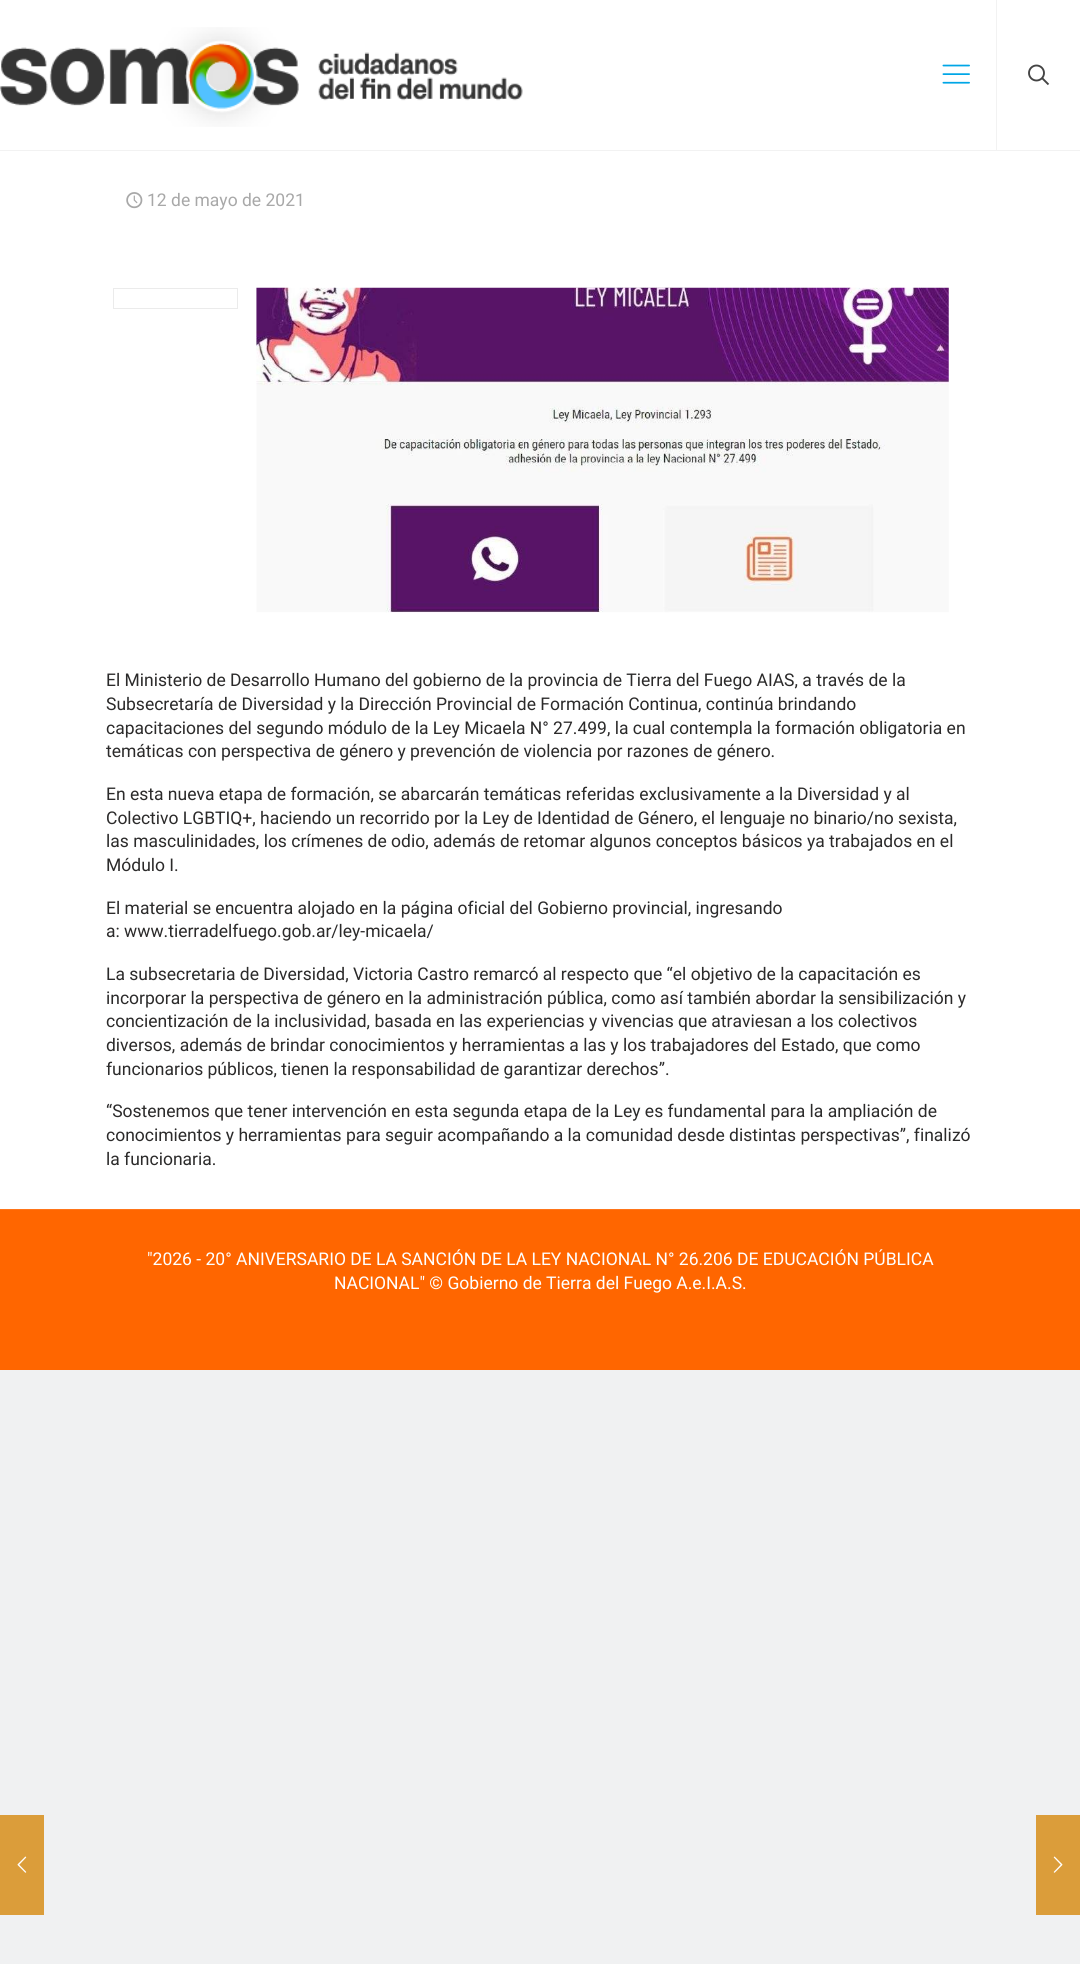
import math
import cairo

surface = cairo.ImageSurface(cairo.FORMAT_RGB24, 1080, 1964)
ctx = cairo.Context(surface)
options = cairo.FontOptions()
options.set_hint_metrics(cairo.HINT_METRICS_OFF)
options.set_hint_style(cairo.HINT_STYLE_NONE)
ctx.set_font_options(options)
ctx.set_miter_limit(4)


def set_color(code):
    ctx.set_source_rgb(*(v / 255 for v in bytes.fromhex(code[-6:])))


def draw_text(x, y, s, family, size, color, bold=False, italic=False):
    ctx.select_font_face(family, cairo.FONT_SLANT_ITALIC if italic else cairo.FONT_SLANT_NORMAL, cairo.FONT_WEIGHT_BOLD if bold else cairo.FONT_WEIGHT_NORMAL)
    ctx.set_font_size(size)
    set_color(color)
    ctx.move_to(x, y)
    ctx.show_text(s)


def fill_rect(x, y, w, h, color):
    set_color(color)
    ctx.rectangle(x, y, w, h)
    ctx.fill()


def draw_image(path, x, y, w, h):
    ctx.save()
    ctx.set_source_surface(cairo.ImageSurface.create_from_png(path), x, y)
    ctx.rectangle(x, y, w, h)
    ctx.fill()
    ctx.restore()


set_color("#f0f1f2")
ctx.paint()
fill_rect(0, 0, 1080, 1209, "#ffffff")
fill_rect(0, 150, 1080, 1, "#f2f2f2")
draw_image("assets/img1.png", 0, 27, 523, 100)
draw_image("assets/img2.png", 942, 64, 28, 20)
fill_rect(996, 0, 1, 150, "#f2f2f2")
ctx.arc(1036.5, 73, 7.5, 0, 2 * math.pi)
set_color("#444444")
ctx.set_line_width(1.9)
ctx.stroke()
ctx.new_path()
ctx.move_to(1042, 78)
ctx.line_to(1048.5, 84.5)
ctx.stroke()
draw_image("assets/img3.png", 126, 192, 17, 17)
draw_text(147, 206, "12 de mayo de 2021", "Roboto", 17.5, "#a8a8a8")
ctx.rectangle(113.5, 288.5, 124, 20)
set_color("#ebebeb")
ctx.set_line_width(1)
ctx.stroke()
draw_image("assets/img4.png", 256, 287, 693, 326)
draw_text(106, 686, "El Ministerio de Desarrollo Humano del gobierno de la provincia de Tierra del Fuego AIAS, a través de la", "Roboto", 17.5, "#2b2a2a")
draw_text(106, 710, "Subsecretaría de Diversidad y la Dirección Provincial de Formación Continua, continúa brindando", "Roboto", 17.5, "#2b2a2a")
draw_text(106, 734, "capacitaciones del segundo módulo de la Ley Micaela N° 27.499, la cual contempla la formación obligatoria en", "Roboto", 17.5, "#2b2a2a")
draw_text(106, 757, "temáticas con perspectiva de género y prevención de violencia por razones de género.", "Roboto", 17.5, "#2b2a2a")
draw_text(106, 800, "En esta nueva etapa de formación, se abarcarán temáticas referidas exclusivamente a la Diversidad y al", "Roboto", 17.5, "#2b2a2a")
draw_text(106, 824, "Colectivo LGBTIQ+, haciendo un recorrido por la Ley de Identidad de Género, el lenguaje no binario/no sexista,", "Roboto", 17.5, "#2b2a2a")
draw_text(106, 847, "las masculinidades, los crímenes de odio, además de retomar algunos conceptos básicos ya trabajados en el", "Roboto", 17.5, "#2b2a2a")
draw_text(106, 871, "Módulo I.", "Roboto", 17.5, "#2b2a2a")
draw_text(106, 914, "El material se encuentra alojado en la página oficial del Gobierno provincial, ingresando", "Roboto", 17.5, "#2b2a2a")
draw_text(106, 937, "a: www.tierradelfuego.gob.ar/ley-micaela/", "Roboto", 17.5, "#2b2a2a")
draw_text(106, 980, "La subsecretaria de Diversidad, Victoria Castro remarcó al respecto que “el objetivo de la capacitación es", "Roboto", 17.5, "#2b2a2a")
draw_text(106, 1004, "incorporar la perspectiva de género en la administración pública, como así también abordar la sensibilización y", "Roboto", 17.5, "#2b2a2a")
draw_text(106, 1027, "concientización de la inclusividad, basada en las experiencias y vivencias que atraviesan a los colectivos", "Roboto", 17.5, "#2b2a2a")
draw_text(106, 1051, "diversos, además de brindar conocimientos y herramientas a las y los trabajadores del Estado, que como", "Roboto", 17.5, "#2b2a2a")
draw_text(106, 1075, "funcionarios públicos, tienen la responsabilidad de garantizar derechos”.", "Roboto", 17.5, "#2b2a2a")
draw_text(106, 1117, "“Sostenemos que tener intervención en esta segunda etapa de la Ley es fundamental para la ampliación de", "Roboto", 17.5, "#2b2a2a")
draw_text(106, 1141, "conocimientos y herramientas para seguir acompañando a la comunidad desde distintas perspectivas”, finalizó", "Roboto", 17.5, "#2b2a2a")
draw_text(106, 1165, "la funcionaria.", "Roboto", 17.5, "#2b2a2a")
fill_rect(0, 1210, 1080, 160, "#ff6600")
fill_rect(0, 1209, 1080, 1, "#ff751a")
draw_text(147, 1265, "\"2026 - 20° ANIVERSARIO DE LA SANCIÓN DE LA LEY NACIONAL N° 26.206 DE EDUCACIÓN PÚBLICA", "Roboto", 17.5, "#ffffff")
draw_text(334, 1289, "NACIONAL\" © Gobierno de Tierra del Fuego A.e.I.A.S.", "Roboto", 17.5, "#ffffff")
fill_rect(0, 1815, 44, 100, "#db9d3a")
draw_image("assets/img5.png", 17, 1856, 10, 17)
fill_rect(1036, 1815, 44, 100, "#db9d3a")
draw_image("assets/img6.png", 1053, 1856, 10, 17)
surface.write_to_png("output.png")
